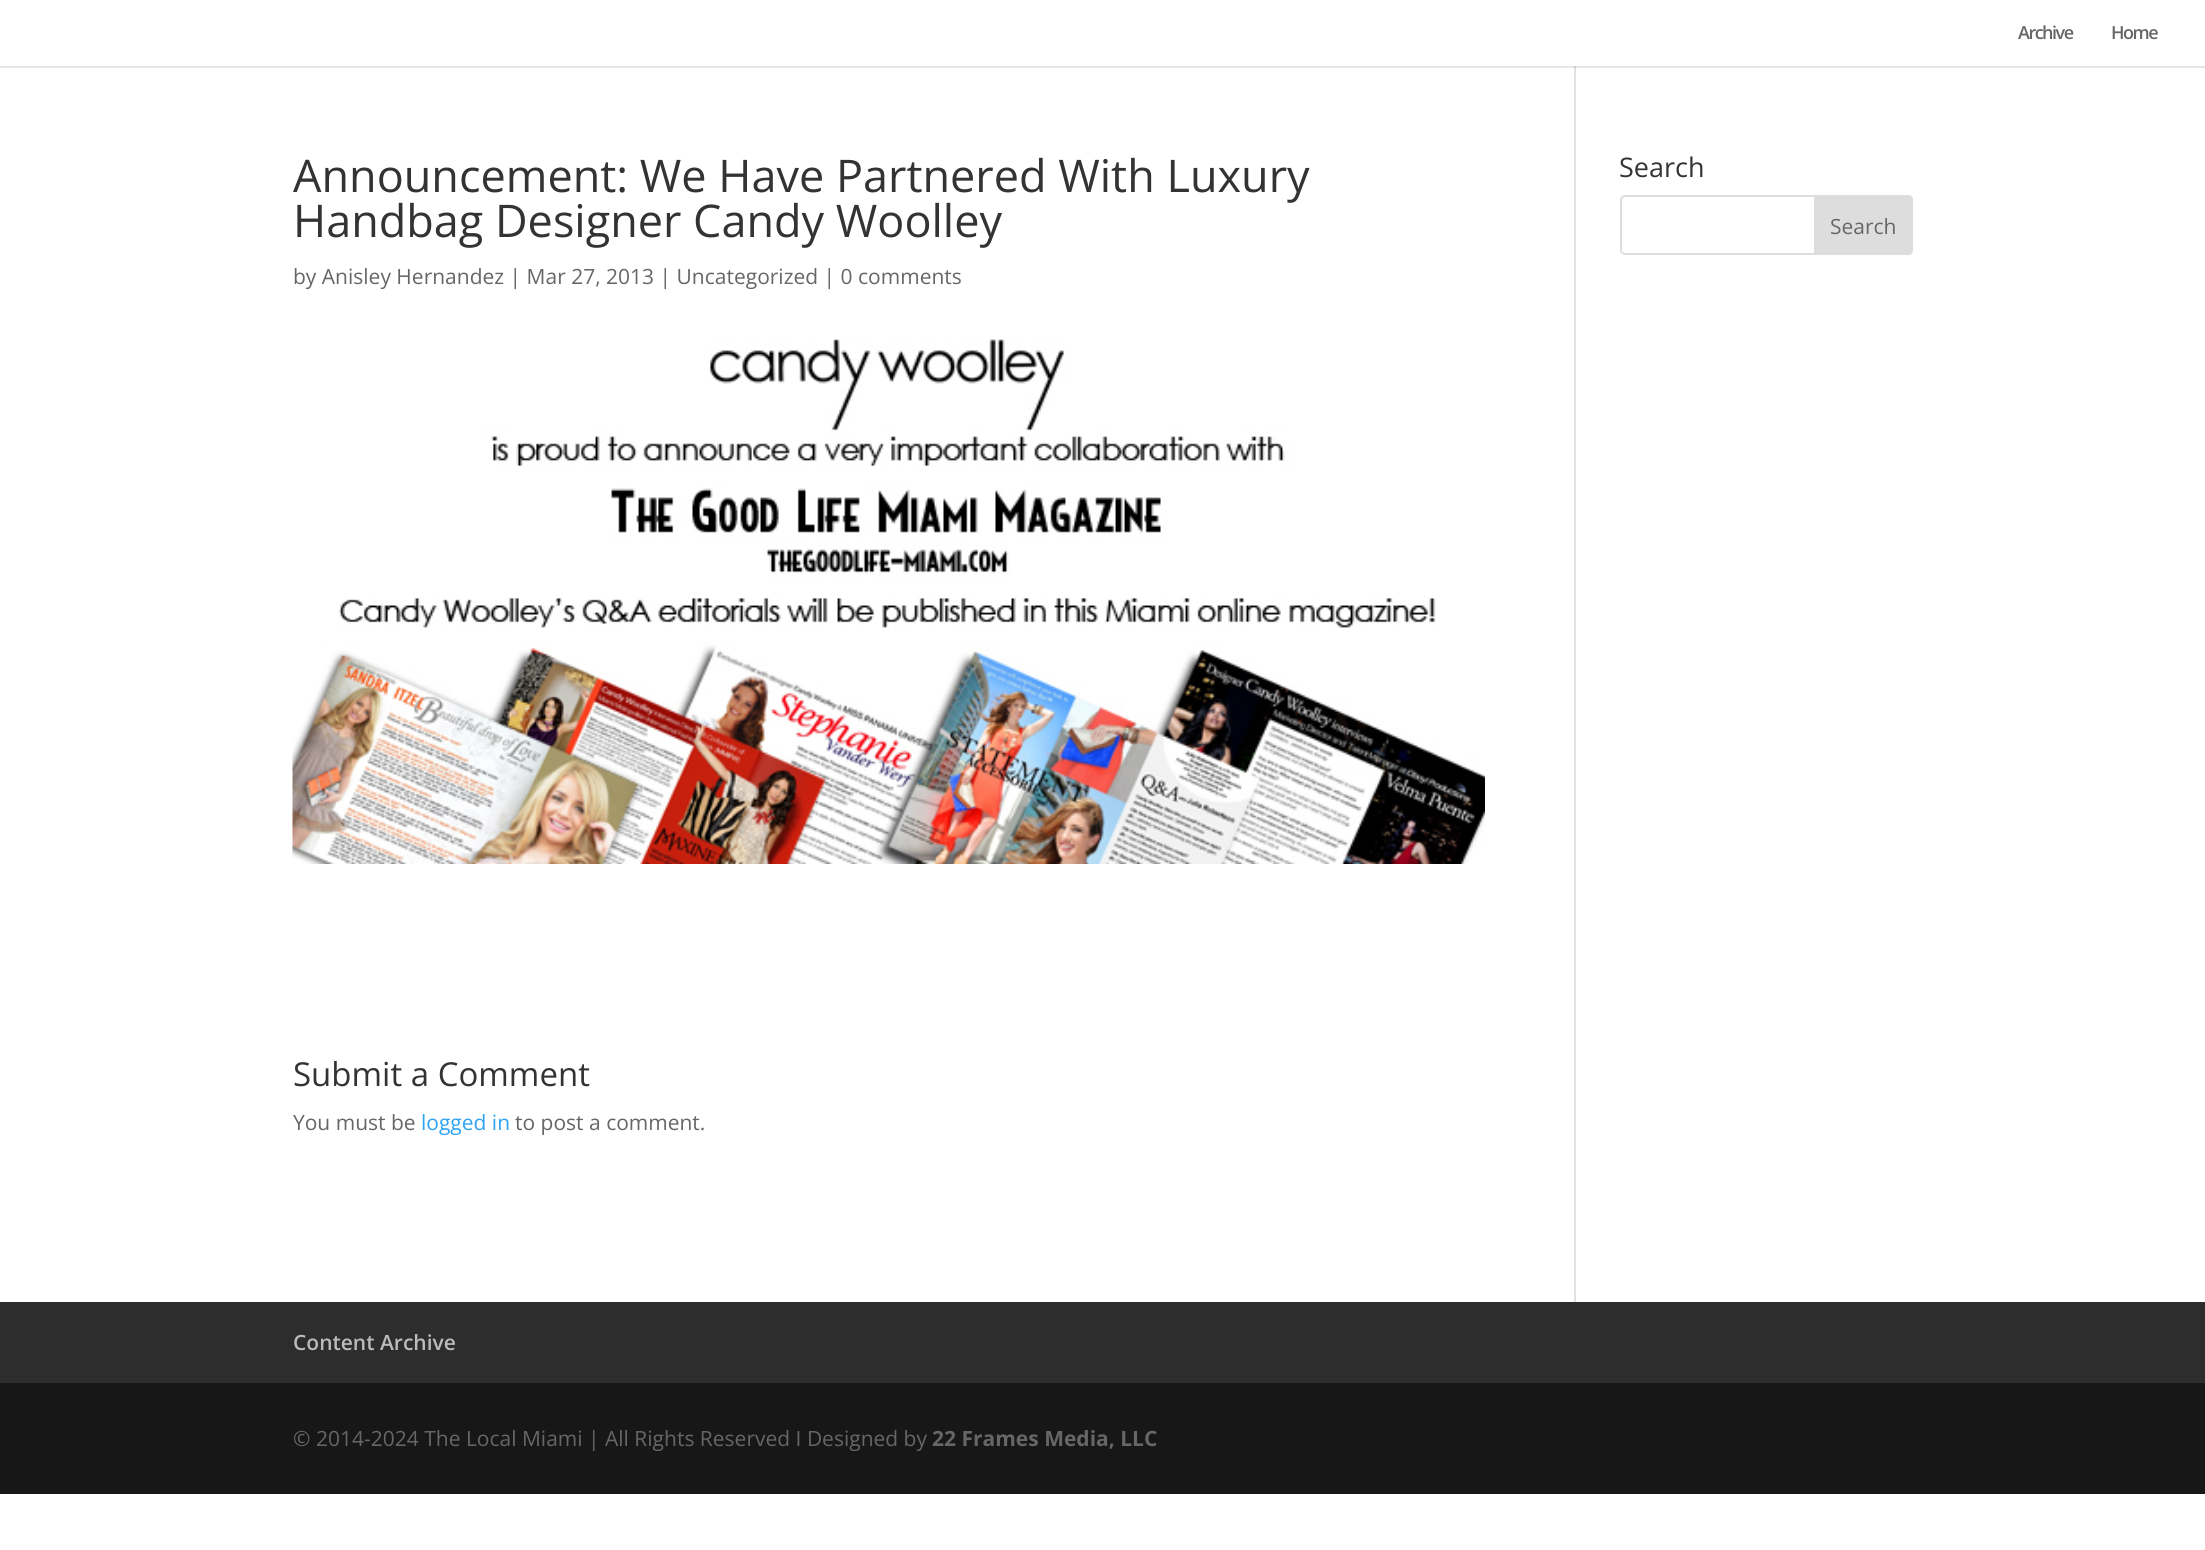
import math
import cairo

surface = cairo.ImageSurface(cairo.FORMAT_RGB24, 2205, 1550)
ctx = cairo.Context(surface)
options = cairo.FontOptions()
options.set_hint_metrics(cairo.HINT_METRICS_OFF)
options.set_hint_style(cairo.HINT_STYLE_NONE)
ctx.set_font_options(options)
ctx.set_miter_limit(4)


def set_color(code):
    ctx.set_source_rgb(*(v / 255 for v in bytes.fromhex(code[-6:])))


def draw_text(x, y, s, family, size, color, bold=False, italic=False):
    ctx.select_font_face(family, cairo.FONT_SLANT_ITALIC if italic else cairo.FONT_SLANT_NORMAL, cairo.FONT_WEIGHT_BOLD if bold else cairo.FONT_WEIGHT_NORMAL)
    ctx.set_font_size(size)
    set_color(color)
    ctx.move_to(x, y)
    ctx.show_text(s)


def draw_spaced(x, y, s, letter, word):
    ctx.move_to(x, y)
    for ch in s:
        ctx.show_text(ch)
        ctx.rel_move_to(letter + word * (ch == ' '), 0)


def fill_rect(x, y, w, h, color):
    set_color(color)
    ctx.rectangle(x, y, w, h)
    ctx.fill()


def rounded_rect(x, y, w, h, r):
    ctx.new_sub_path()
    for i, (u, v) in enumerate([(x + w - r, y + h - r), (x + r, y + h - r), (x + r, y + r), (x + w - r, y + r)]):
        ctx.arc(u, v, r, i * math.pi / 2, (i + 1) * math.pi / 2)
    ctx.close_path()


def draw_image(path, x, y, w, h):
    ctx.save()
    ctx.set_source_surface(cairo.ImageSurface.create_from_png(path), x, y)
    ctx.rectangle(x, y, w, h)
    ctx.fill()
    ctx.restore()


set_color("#ffffff")
ctx.paint()
fill_rect(0, 66, 2205, 2, "#e6e6e6")
ctx.select_font_face("Open Sans SemiBold")
ctx.set_font_size(18)
set_color("#666666")
draw_spaced(2018, 39, "Archive", -1.5, 0)
draw_spaced(2111, 39, "Home", -1.5, 0)
fill_rect(1574, 66, 2, 1236, "#e2e2e2")
fill_rect(1574, 66, 2, 2, "#cbcbcb")
draw_text(293, 192, "Announcement: We Have Partnered With Luxury", "Open Sans", 45, "#333333")
draw_text(293, 237, "Handbag Designer Candy Woolley", "Open Sans", 45, "#333333")
draw_text(293, 284, "by Anisley Hernandez | Mar 27, 2013 | Uncategorized | 0 comments", "Open Sans", 21, "#666666")
draw_image("assets/img1.png", 292, 339, 1193, 525)
draw_text(293, 1086, "Submit a Comment", "Open Sans", 33, "#333333")
draw_text(293, 1130, "You must be", "Open Sans", 21, "#666666")
draw_text(421, 1130, "logged in", "Open Sans", 21, "#2ea3f2")
draw_text(515, 1130, "to post a comment.", "Open Sans", 21, "#666666")
draw_text(1619, 177, "Search", "Open Sans", 27, "#333333")
rounded_rect(1621, 196, 291, 58, 4)
set_color("#dddddd")
ctx.stroke()
ctx.new_path()
ctx.move_to(1815, 196)
ctx.line_to(1908, 196)
ctx.curve_to(1910, 196, 1912, 198, 1912, 200)
ctx.line_to(1912, 250)
ctx.curve_to(1912, 252, 1910, 254, 1908, 254)
ctx.line_to(1815, 254)
ctx.close_path()
ctx.fill_preserve()
ctx.stroke()
draw_text(1830, 234, "Search", "Open Sans", 21, "#666666")
fill_rect(0, 1302, 2205, 81, "#2d2d2d")
draw_text(293, 1350, "Content Archive", "Open Sans SemiBold", 21, "#bbbbbb")
fill_rect(0, 1383, 2205, 111, "#171717")
draw_text(293, 1446, "© 2014-2024 The Local Miami | All Rights Reserved I Designed by", "Open Sans", 21, "#666666")
draw_text(932, 1446, "22 Frames Media, LLC", "Open Sans", 21, "#666666", bold=True)
surface.write_to_png("output.png")
